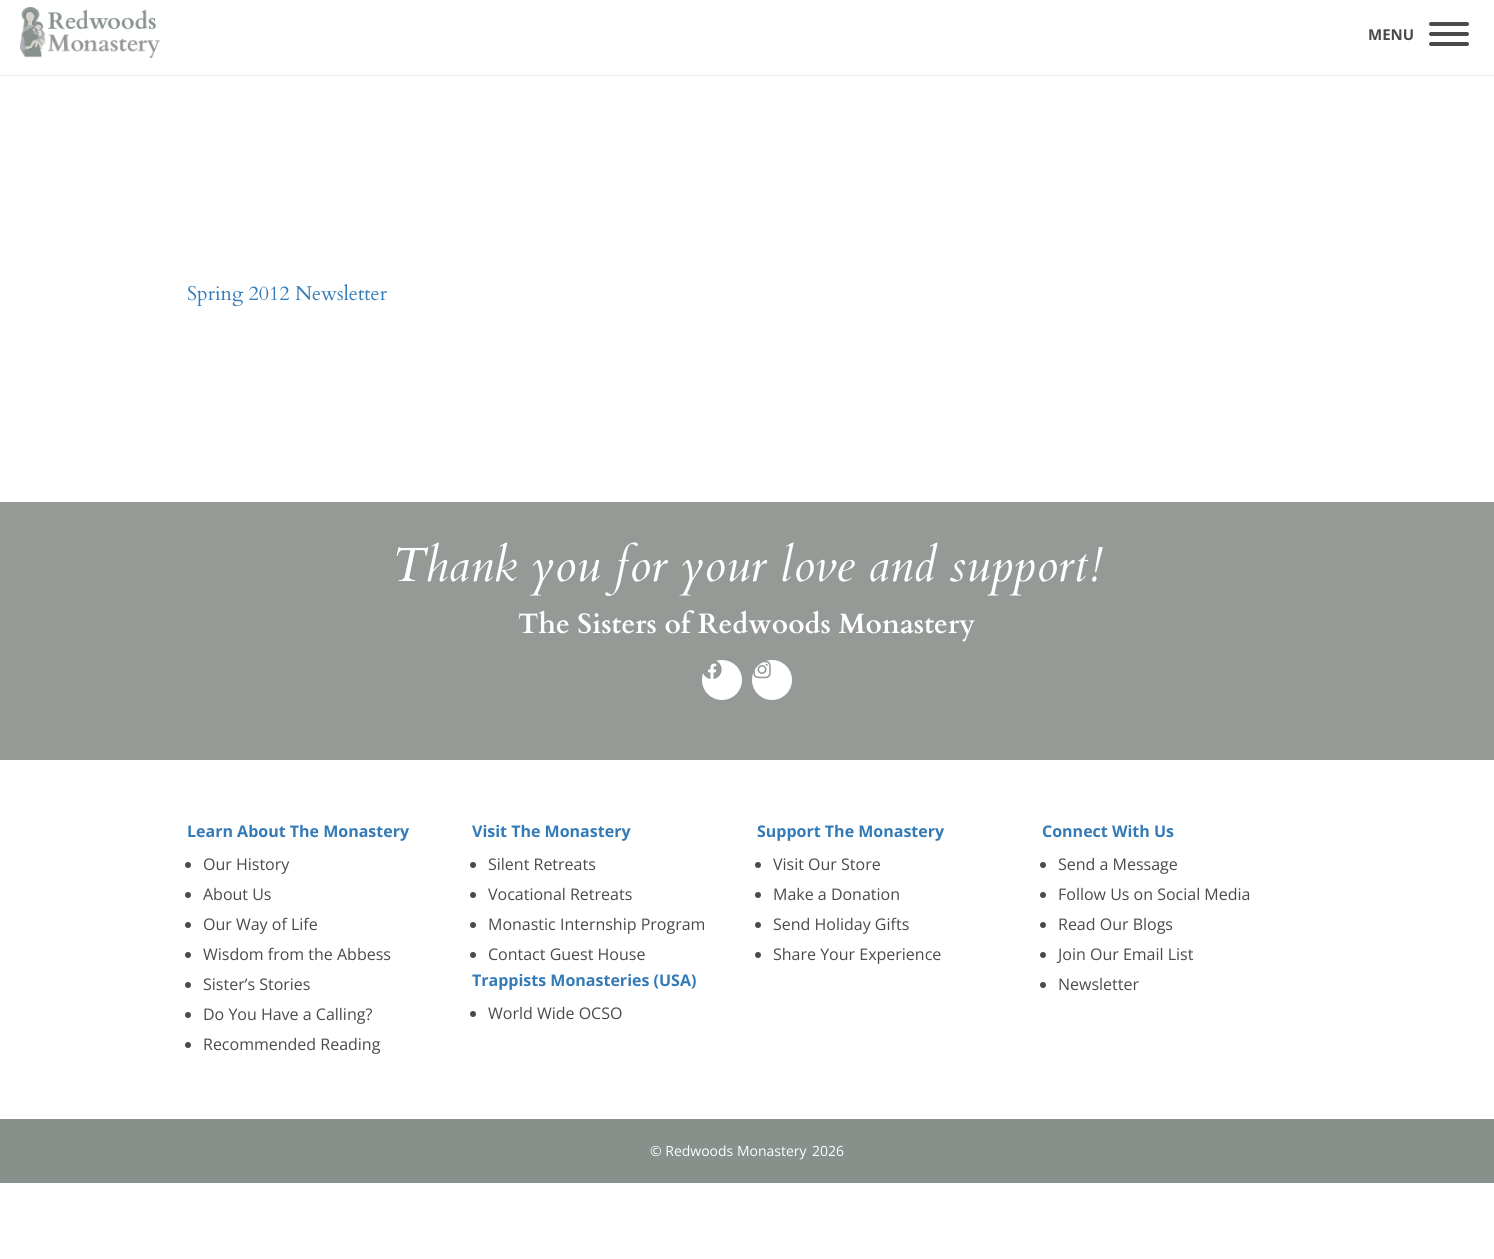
import math
import cairo

surface = cairo.ImageSurface(cairo.FORMAT_RGB24, 1494, 1259)
ctx = cairo.Context(surface)
options = cairo.FontOptions()
options.set_hint_metrics(cairo.HINT_METRICS_OFF)
options.set_hint_style(cairo.HINT_STYLE_NONE)
ctx.set_font_options(options)
ctx.set_miter_limit(4)


def set_color(code):
    ctx.set_source_rgb(*(v / 255 for v in bytes.fromhex(code[-6:])))


def draw_text(x, y, s, family, size, color, bold=False, italic=False):
    ctx.select_font_face(family, cairo.FONT_SLANT_ITALIC if italic else cairo.FONT_SLANT_NORMAL, cairo.FONT_WEIGHT_BOLD if bold else cairo.FONT_WEIGHT_NORMAL)
    ctx.set_font_size(size)
    set_color(color)
    ctx.move_to(x, y)
    ctx.show_text(s)


def fill_rect(x, y, w, h, color):
    set_color(color)
    ctx.rectangle(x, y, w, h)
    ctx.fill()


def rounded_rect(x, y, w, h, r):
    ctx.new_sub_path()
    for i, (u, v) in enumerate([(x + w - r, y + h - r), (x + r, y + h - r), (x + r, y + r), (x + w - r, y + r)]):
        ctx.arc(u, v, r, i * math.pi / 2, (i + 1) * math.pi / 2)
    ctx.close_path()


def draw_image(path, x, y, w, h):
    ctx.save()
    ctx.set_source_surface(cairo.ImageSurface.create_from_png(path), x, y)
    ctx.rectangle(x, y, w, h)
    ctx.fill()
    ctx.restore()


set_color("#ffffff")
ctx.paint()
fill_rect(0, 75, 1494, 1, "#e8e9eb")
draw_image("assets/img1.png", 20, 7, 140, 51)
draw_text(1368, 40, "MENU", "Open Sans", 15, "#4a4a4a", bold=True)
rounded_rect(1429, 32, 40, 4, 2)
ctx.fill()
rounded_rect(1429, 22, 40, 4, 2)
ctx.fill()
rounded_rect(1429, 42, 40, 4, 2)
ctx.fill()
draw_text(187, 300, "Spring 2012 Newsletter", "Cardo", 20, "#337ab7")
fill_rect(0, 502, 1494, 258, "#969a97")
draw_text(392, 581, "Thank you for your love and support!", "Cardo", 48, "#ffffff", italic=True)
draw_text(518, 633, "The Sisters of Redwoods Monastery", "Cardo", 28, "#ffffff", bold=True)
ctx.new_path()
ctx.arc(722, 680, 20, 0, 2 * math.pi)
ctx.fill()
draw_image("assets/img2.png", 703, 661, 19, 18)
ctx.arc(772, 680, 20, 0, 2 * math.pi)
ctx.fill()
draw_image("assets/img3.png", 753, 661, 18, 18)
draw_text(187, 837, "Learn About The Monastery", "Open Sans", 16, "#337ab7", bold=True)
set_color("#4a4a4a")
ctx.new_path()
ctx.arc(188, 865, 3, 0, 2 * math.pi)
ctx.fill()
draw_text(203, 870, "Our History", "Open Sans", 16, "#4a4a4a")
ctx.new_path()
ctx.arc(188, 895, 3, 0, 2 * math.pi)
ctx.fill()
draw_text(203, 900, "About Us", "Open Sans", 16, "#4a4a4a")
ctx.new_path()
ctx.arc(188, 925, 3, 0, 2 * math.pi)
ctx.fill()
draw_text(203, 930, "Our Way of Life", "Open Sans", 16, "#4a4a4a")
ctx.new_path()
ctx.arc(188, 955, 3, 0, 2 * math.pi)
ctx.fill()
draw_text(203, 960, "Wisdom from the Abbess", "Open Sans", 16, "#4a4a4a")
ctx.new_path()
ctx.arc(188, 985, 3, 0, 2 * math.pi)
ctx.fill()
draw_text(203, 990, "Sister’s Stories", "Open Sans", 16, "#4a4a4a")
ctx.new_path()
ctx.arc(188, 1015, 3, 0, 2 * math.pi)
ctx.fill()
draw_text(203, 1020, "Do You Have a Calling?", "Open Sans", 16, "#4a4a4a")
ctx.new_path()
ctx.arc(188, 1045, 3, 0, 2 * math.pi)
ctx.fill()
draw_text(203, 1050, "Recommended Reading", "Open Sans", 16, "#4a4a4a")
draw_text(472, 837, "Visit The Monastery", "Open Sans", 16, "#337ab7", bold=True)
set_color("#4a4a4a")
ctx.new_path()
ctx.arc(473, 865, 3, 0, 2 * math.pi)
ctx.fill()
draw_text(488, 870, "Silent Retreats", "Open Sans", 16, "#4a4a4a")
ctx.new_path()
ctx.arc(473, 895, 3, 0, 2 * math.pi)
ctx.fill()
draw_text(488, 900, "Vocational Retreats", "Open Sans", 16, "#4a4a4a")
ctx.new_path()
ctx.arc(473, 925, 3, 0, 2 * math.pi)
ctx.fill()
draw_text(488, 930, "Monastic Internship Program", "Open Sans", 16, "#4a4a4a")
ctx.new_path()
ctx.arc(473, 955, 3, 0, 2 * math.pi)
ctx.fill()
draw_text(488, 960, "Contact Guest House", "Open Sans", 16, "#4a4a4a")
draw_text(472, 986, "Trappists Monasteries (USA)", "Open Sans", 16, "#337ab7", bold=True)
set_color("#4a4a4a")
ctx.new_path()
ctx.arc(473, 1014, 3, 0, 2 * math.pi)
ctx.fill()
draw_text(488, 1019, "World Wide OCSO", "Open Sans", 16, "#4a4a4a")
draw_text(757, 837, "Support The Monastery", "Open Sans", 16, "#337ab7", bold=True)
set_color("#4a4a4a")
ctx.new_path()
ctx.arc(758, 865, 3, 0, 2 * math.pi)
ctx.fill()
draw_text(773, 870, "Visit Our Store", "Open Sans", 16, "#4a4a4a")
ctx.new_path()
ctx.arc(758, 895, 3, 0, 2 * math.pi)
ctx.fill()
draw_text(773, 900, "Make a Donation", "Open Sans", 16, "#4a4a4a")
ctx.new_path()
ctx.arc(758, 925, 3, 0, 2 * math.pi)
ctx.fill()
draw_text(773, 930, "Send Holiday Gifts", "Open Sans", 16, "#4a4a4a")
ctx.new_path()
ctx.arc(758, 955, 3, 0, 2 * math.pi)
ctx.fill()
draw_text(773, 960, "Share Your Experience", "Open Sans", 16, "#4a4a4a")
draw_text(1042, 837, "Connect With Us", "Open Sans", 16, "#337ab7", bold=True)
set_color("#4a4a4a")
ctx.new_path()
ctx.arc(1043, 865, 3, 0, 2 * math.pi)
ctx.fill()
draw_text(1058, 870, "Send a Message", "Open Sans", 16, "#4a4a4a")
ctx.new_path()
ctx.arc(1043, 895, 3, 0, 2 * math.pi)
ctx.fill()
draw_text(1058, 900, "Follow Us on Social Media", "Open Sans", 16, "#4a4a4a")
ctx.new_path()
ctx.arc(1043, 925, 3, 0, 2 * math.pi)
ctx.fill()
draw_text(1058, 930, "Read Our Blogs", "Open Sans", 16, "#4a4a4a")
ctx.new_path()
ctx.arc(1043, 955, 3, 0, 2 * math.pi)
ctx.fill()
draw_text(1058, 960, "Join Our Email List", "Open Sans", 16, "#4a4a4a")
ctx.new_path()
ctx.arc(1043, 985, 3, 0, 2 * math.pi)
ctx.fill()
draw_text(1058, 990, "Newsletter", "Open Sans", 16, "#4a4a4a")
fill_rect(0, 1119, 1494, 64, "#87908b")
draw_text(650, 1156, "© Redwoods Monastery", "Open Sans", 14, "#ffffff")
draw_text(812, 1156, "2026", "Open Sans", 14, "#ffffff")
surface.write_to_png("output.png")
